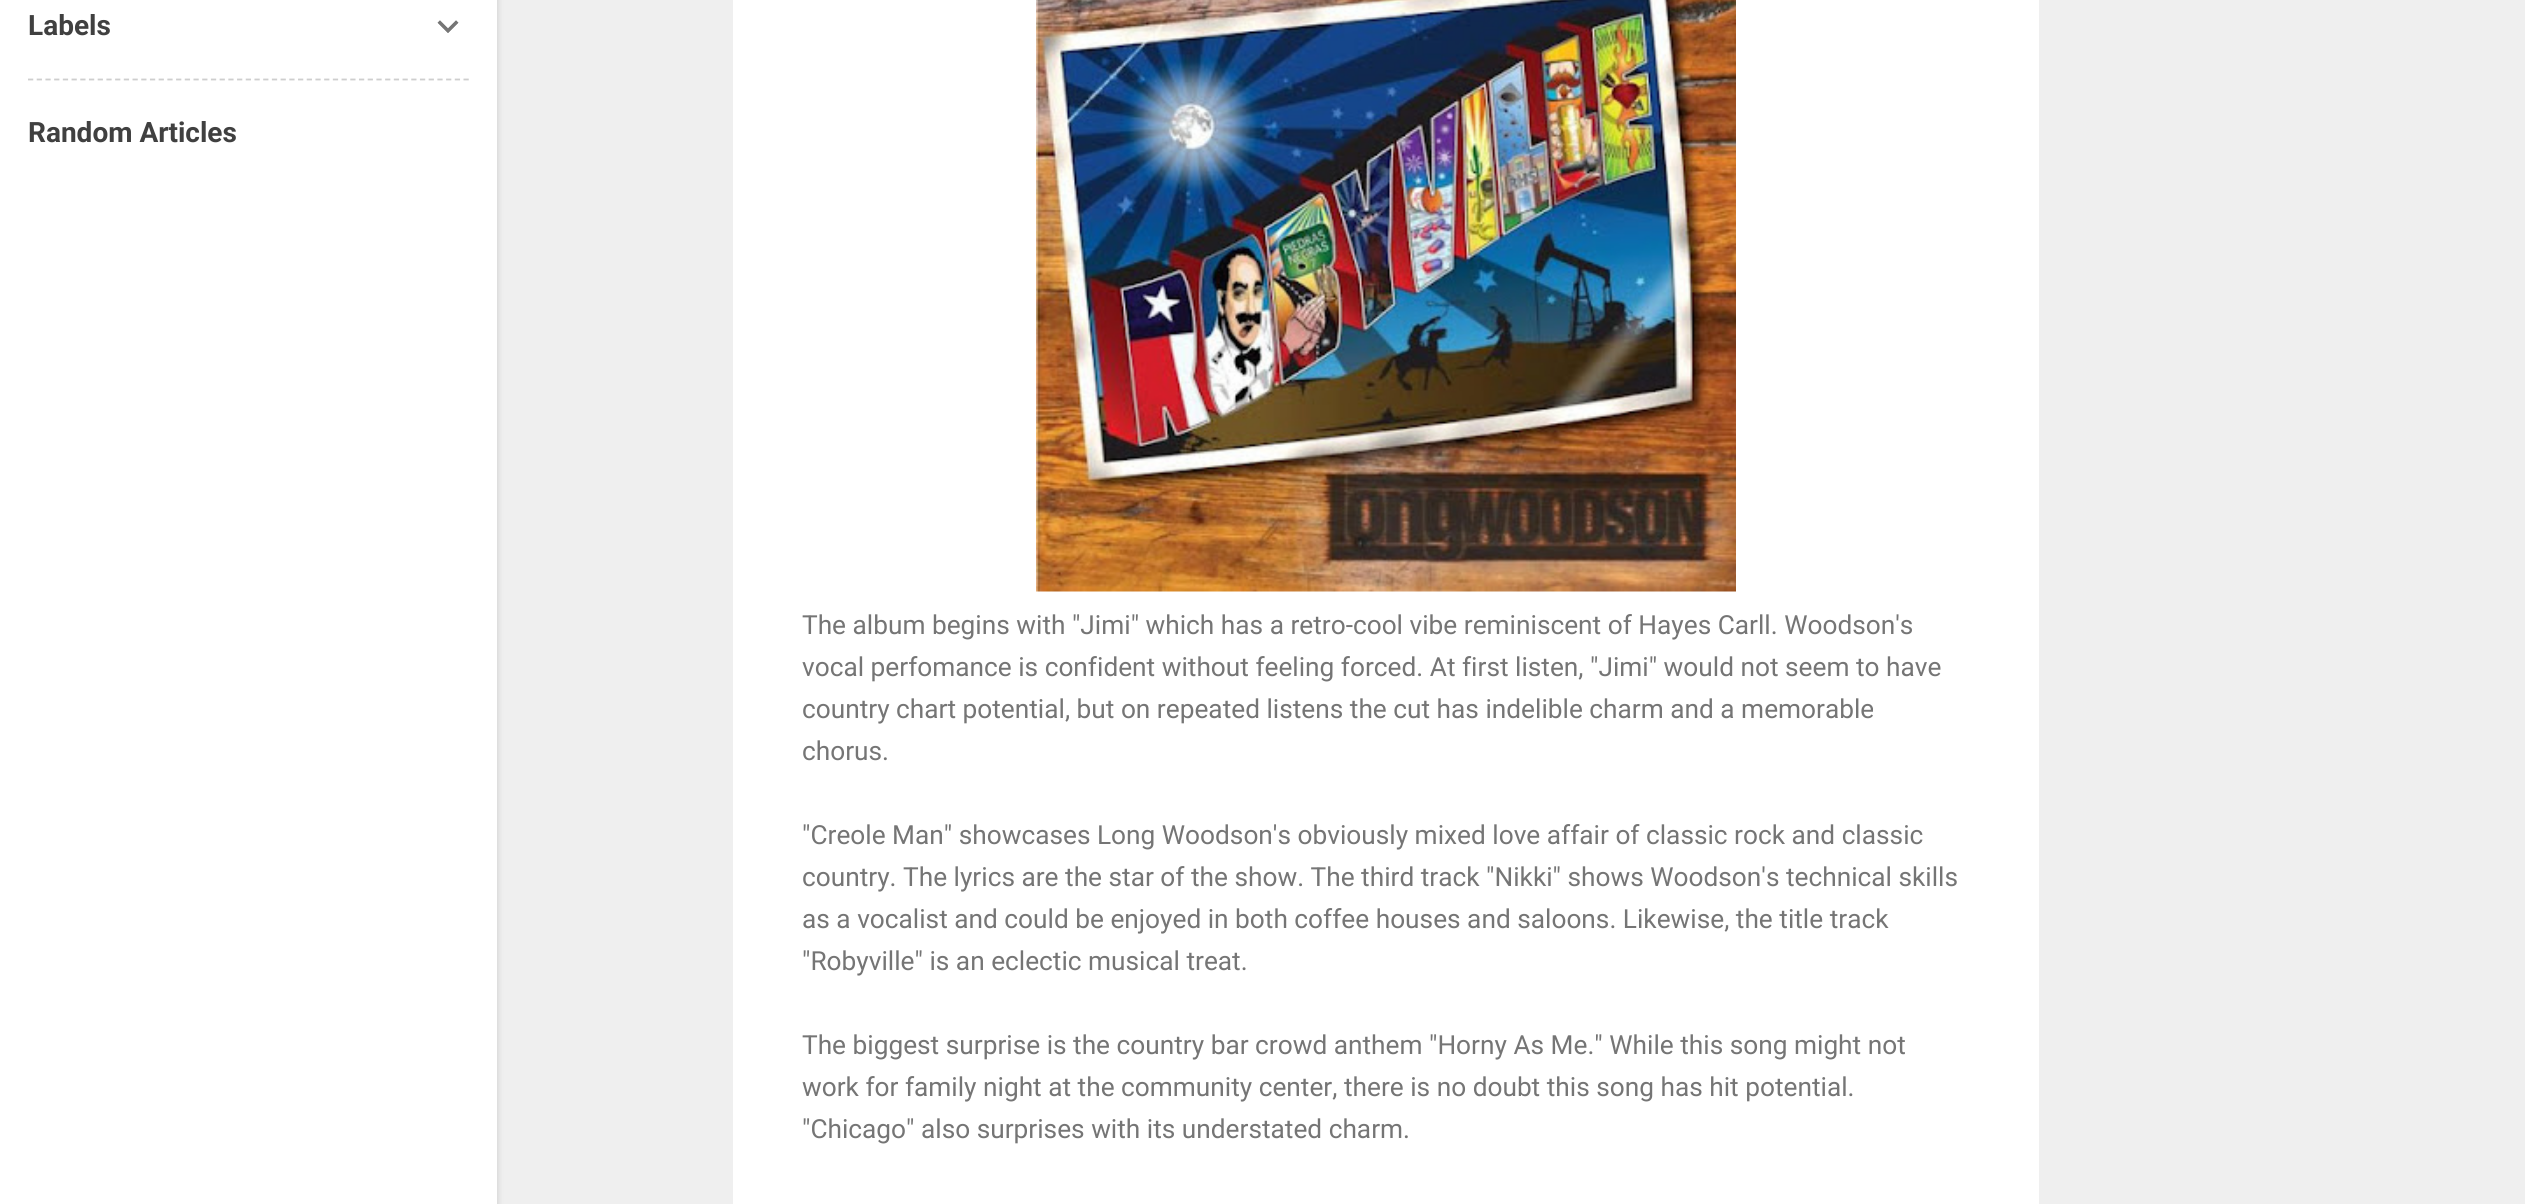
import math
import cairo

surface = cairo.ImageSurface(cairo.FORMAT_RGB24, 2525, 1204)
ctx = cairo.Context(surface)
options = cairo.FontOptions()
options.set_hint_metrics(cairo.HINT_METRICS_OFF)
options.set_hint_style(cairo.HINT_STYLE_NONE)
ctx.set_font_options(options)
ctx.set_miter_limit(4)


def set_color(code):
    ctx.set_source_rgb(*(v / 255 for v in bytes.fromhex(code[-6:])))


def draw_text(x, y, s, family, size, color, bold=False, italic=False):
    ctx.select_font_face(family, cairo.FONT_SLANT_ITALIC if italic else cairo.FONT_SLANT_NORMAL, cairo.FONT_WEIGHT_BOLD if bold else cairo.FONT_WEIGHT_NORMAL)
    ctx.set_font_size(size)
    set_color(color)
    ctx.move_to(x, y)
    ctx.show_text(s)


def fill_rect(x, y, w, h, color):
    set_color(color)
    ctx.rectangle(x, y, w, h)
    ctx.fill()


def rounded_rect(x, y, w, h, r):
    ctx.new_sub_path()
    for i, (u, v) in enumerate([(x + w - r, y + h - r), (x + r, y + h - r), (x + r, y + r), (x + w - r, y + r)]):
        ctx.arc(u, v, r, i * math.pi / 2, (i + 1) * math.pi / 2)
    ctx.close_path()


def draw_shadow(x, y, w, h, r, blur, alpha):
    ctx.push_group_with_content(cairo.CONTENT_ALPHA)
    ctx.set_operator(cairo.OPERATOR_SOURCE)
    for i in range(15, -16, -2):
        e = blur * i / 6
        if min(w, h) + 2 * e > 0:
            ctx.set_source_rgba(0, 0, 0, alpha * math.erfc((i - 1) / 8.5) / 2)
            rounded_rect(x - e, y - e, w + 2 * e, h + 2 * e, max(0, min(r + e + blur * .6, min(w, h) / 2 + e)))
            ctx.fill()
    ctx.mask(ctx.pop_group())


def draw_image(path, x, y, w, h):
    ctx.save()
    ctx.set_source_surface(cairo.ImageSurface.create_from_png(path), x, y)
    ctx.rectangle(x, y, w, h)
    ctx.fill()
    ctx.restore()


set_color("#efefef")
ctx.paint()
set_color("#000000")
draw_shadow(2, -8, 497, 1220, 0, 2.5, 0.1)
fill_rect(0, 0, 497, 1204, "#ffffff")
draw_text(28, 35, "Labels", "Roboto", 28, "#404040", bold=True)
draw_image("assets/img1.png", 437, 20, 22, 13)
ctx.new_path()
ctx.move_to(28, 79.5)
ctx.line_to(469, 79.5)
set_color("#cecece")
ctx.set_line_width(1.8)
ctx.set_dash([5.25, 3.46])
ctx.stroke()
draw_text(28, 142, "Random Articles", "Roboto", 28, "#404040", bold=True)
fill_rect(733, 0, 1306, 1204, "#ffffff")
draw_image("assets/img2.png", 1036, 0, 700, 592)
draw_text(802, 634, "The album begins with \"Jimi\" which has a retro-cool vibe reminiscent of Hayes Carll. Woodson's", "Roboto", 26.25, "#757575")
draw_text(802, 676, "vocal perfomance is confident without feeling forced. At first listen, \"Jimi\" would not seem to have", "Roboto", 26.25, "#757575")
draw_text(802, 718, "country chart potential, but on repeated listens the cut has indelible charm and a memorable", "Roboto", 26.25, "#757575")
draw_text(802, 760, "chorus.", "Roboto", 26.25, "#757575")
draw_text(802, 844, "\"Creole Man\" showcases Long Woodson's obviously mixed love affair of classic rock and classic", "Roboto", 26.25, "#757575")
draw_text(802, 886, "country. The lyrics are the star of the show. The third track \"Nikki\" shows Woodson's technical skills", "Roboto", 26.25, "#757575")
draw_text(802, 928, "as a vocalist and could be enjoyed in both coffee houses and saloons. Likewise, the title track", "Roboto", 26.25, "#757575")
draw_text(802, 970, "\"Robyville\" is an eclectic musical treat.", "Roboto", 26.25, "#757575")
draw_text(802, 1054, "The biggest surprise is the country bar crowd anthem \"Horny As Me.\" While this song might not", "Roboto", 26.25, "#757575")
draw_text(802, 1096, "work for family night at the community center, there is no doubt this song has hit potential.", "Roboto", 26.25, "#757575")
draw_text(802, 1138, "\"Chicago\" also surprises with its understated charm.", "Roboto", 26.25, "#757575")
surface.write_to_png("output.png")
